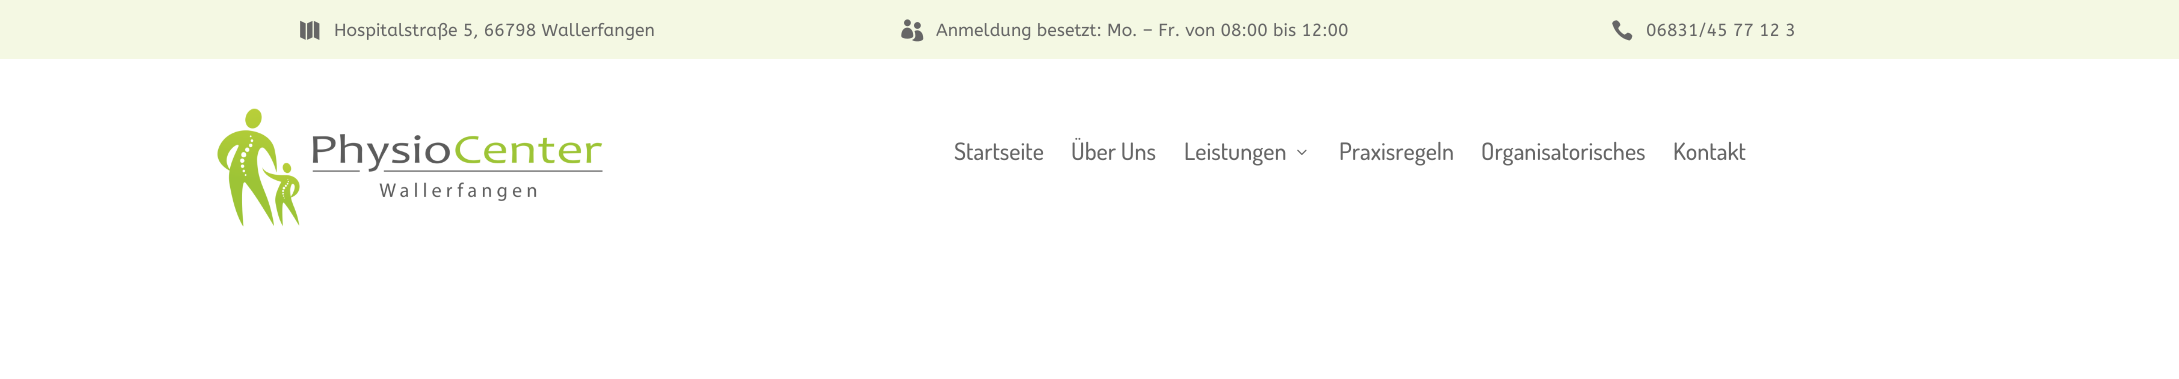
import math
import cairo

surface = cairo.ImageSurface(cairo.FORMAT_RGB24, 2179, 379)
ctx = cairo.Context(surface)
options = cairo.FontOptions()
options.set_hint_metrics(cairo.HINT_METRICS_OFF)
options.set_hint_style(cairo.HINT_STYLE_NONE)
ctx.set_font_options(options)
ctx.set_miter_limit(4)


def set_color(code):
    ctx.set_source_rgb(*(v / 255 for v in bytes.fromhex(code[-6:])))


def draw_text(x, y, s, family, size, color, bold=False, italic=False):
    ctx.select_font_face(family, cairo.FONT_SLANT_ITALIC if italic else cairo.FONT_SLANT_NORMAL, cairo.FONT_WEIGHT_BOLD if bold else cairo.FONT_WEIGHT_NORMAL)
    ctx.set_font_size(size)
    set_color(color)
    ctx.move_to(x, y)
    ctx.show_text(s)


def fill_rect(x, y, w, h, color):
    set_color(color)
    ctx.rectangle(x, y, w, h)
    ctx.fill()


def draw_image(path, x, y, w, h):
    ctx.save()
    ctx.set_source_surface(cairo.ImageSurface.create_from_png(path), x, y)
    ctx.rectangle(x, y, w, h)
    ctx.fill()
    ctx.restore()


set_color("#ffffff")
ctx.paint()
fill_rect(0, 0, 2179, 59, "#f4f8e3")
draw_image("assets/img1.png", 300, 20, 20, 20)
draw_text(334, 36, "Hospitalstraße 5, 66798 Wallerfangen", "ABeeZee", 17.5, "#666666")
draw_image("assets/img2.png", 901, 19, 23, 23)
draw_text(936, 36, "Anmeldung besetzt: Mo. – Fr. von 08:00 bis 12:00", "ABeeZee", 17.5, "#666666")
draw_image("assets/img3.png", 1612, 20, 21, 21)
draw_text(1646, 36, "06831/45 77 12 3", "ABeeZee", 17.5, "#666666")
draw_image("assets/img4.png", 217, 108, 386, 119)
draw_text(954, 160, "Startseite", "Dosis Medium", 24, "#666666")
draw_text(1071, 160, "Über Uns", "Dosis Medium", 24, "#666666")
draw_text(1184, 160, "Leistungen", "Dosis Medium", 24, "#666666")
draw_image("assets/img5.png", 1297, 149, 10, 6)
draw_text(1339, 160, "Praxisregeln", "Dosis Medium", 24, "#666666")
draw_text(1481, 160, "Organisatorisches", "Dosis Medium", 24, "#666666")
draw_text(1673, 160, "Kontakt", "Dosis Medium", 24, "#666666")
surface.write_to_png("output.png")
